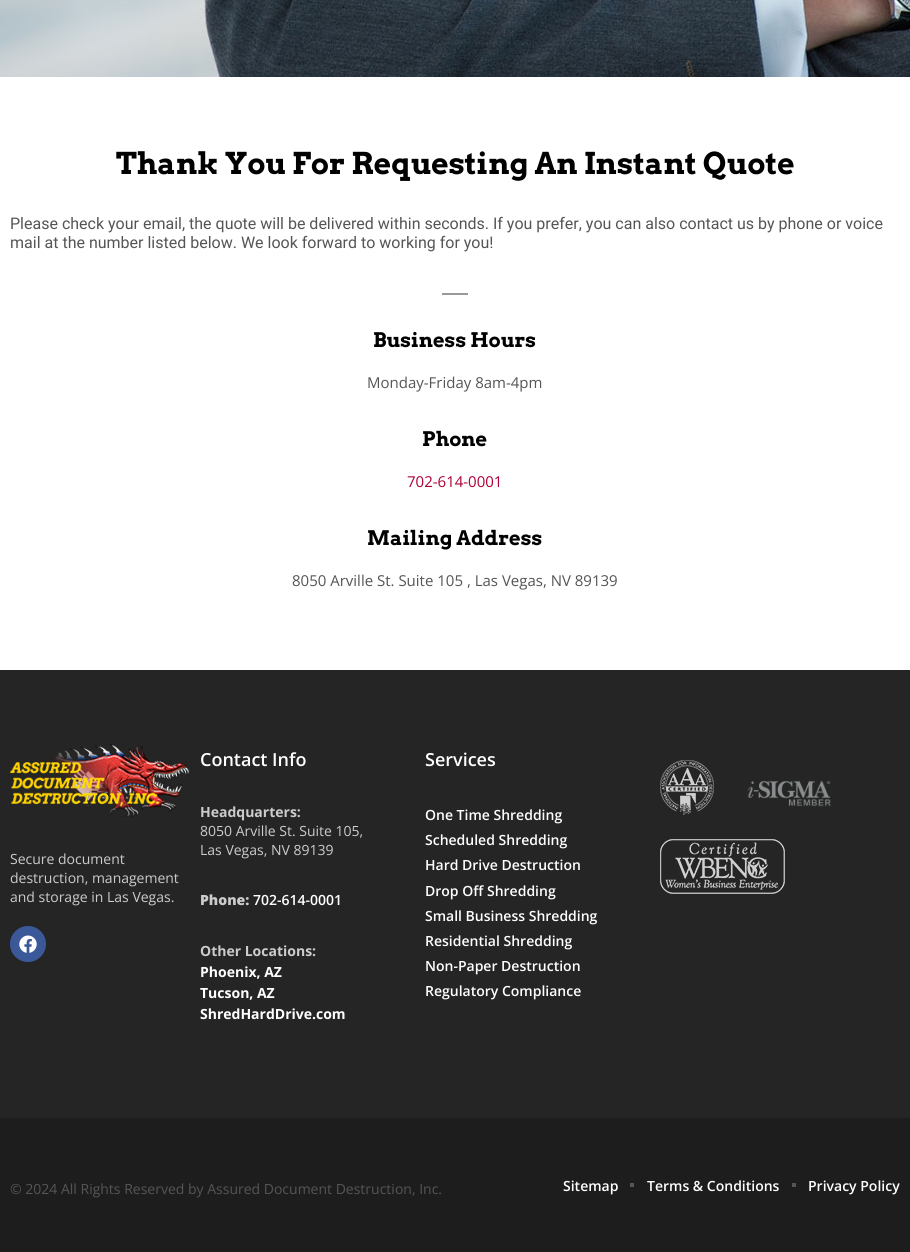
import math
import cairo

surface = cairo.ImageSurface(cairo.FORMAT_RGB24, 910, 1252)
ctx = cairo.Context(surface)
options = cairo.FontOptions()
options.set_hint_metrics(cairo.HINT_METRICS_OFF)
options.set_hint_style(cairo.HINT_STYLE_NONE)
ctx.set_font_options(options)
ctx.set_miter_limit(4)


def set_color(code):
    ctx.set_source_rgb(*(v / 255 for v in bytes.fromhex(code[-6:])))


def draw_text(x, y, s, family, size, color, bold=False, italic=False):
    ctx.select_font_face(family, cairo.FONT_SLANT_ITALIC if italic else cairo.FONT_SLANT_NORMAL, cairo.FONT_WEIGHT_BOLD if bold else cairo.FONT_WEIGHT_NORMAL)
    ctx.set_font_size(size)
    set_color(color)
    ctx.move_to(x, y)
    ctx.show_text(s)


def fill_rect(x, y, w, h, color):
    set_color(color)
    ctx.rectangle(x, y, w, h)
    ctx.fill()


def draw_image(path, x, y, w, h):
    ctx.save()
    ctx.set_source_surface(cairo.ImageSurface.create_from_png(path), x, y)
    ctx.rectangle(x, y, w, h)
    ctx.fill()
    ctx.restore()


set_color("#ffffff")
ctx.paint()
draw_image("assets/img1.png", 0, 0, 910, 77)
draw_text(116, 174, "Thank You For Requesting An Instant Quote", "Arvo", 30, "#000000", bold=True)
draw_text(10, 229, "Please check your email, the quote will be delivered within seconds. If you prefer, you can also contact us by phone or voice", "Roboto", 16, "#555555")
draw_text(10, 248, "mail at the number listed below. We look forward to working for you!", "Roboto", 16, "#555555")
fill_rect(442, 293, 26, 2, "#999999")
draw_text(373, 347, "Business Hours", "Arvo", 20, "#000000", bold=True)
draw_text(367, 388, "Monday-Friday 8am-4pm", "Open Sans", 15, "#555555")
draw_text(422, 446, "Phone", "Arvo", 20, "#000000", bold=True)
draw_text(407, 487, "702-614-0001", "Open Sans", 15, "#ae0035")
draw_text(367, 545, "Mailing Address", "Arvo", 20, "#000000", bold=True)
draw_text(292, 586, "8050 Arville St. Suite 105 , Las Vegas, NV 89139", "Open Sans", 15, "#555555")
fill_rect(0, 670, 910, 448, "#252525")
draw_image("assets/img2.png", 10, 744, 180, 73)
draw_text(10, 864, "Secure document", "Open Sans", 14, "#cccccc")
draw_text(10, 883, "destruction, management", "Open Sans", 14, "#cccccc")
draw_text(10, 902, "and storage in Las Vegas.", "Open Sans", 14, "#cccccc")
set_color("#3b5998")
ctx.new_path()
ctx.arc(28, 944, 18, 0, 2 * math.pi)
ctx.fill()
draw_image("assets/img3.png", 19, 935, 18, 18)
draw_text(200, 766, "Contact Info", "Open Sans SemiBold", 18, "#ffffff")
draw_text(200, 817, "Headquarters:", "Open Sans", 14, "#cccccc", bold=True)
draw_text(200, 836, "8050 Arville St. Suite 105,", "Open Sans", 14, "#cccccc")
draw_text(200, 855, "Las Vegas, NV 89139", "Open Sans", 14, "#cccccc")
draw_text(200, 905, "Phone:", "Open Sans ExtraBold", 14, "#cccccc")
draw_text(253, 905, "702-614-0001", "Open Sans SemiBold", 14, "#ffffff")
draw_text(200, 956, "Other Locations:", "Open Sans", 14, "#cccccc", bold=True)
draw_text(200, 977, "Phoenix, AZ", "Open Sans", 14, "#ffffff", bold=True)
draw_text(200, 998, "Tucson, AZ", "Open Sans", 14, "#ffffff", bold=True)
draw_text(200, 1019, "ShredHardDrive.com", "Open Sans", 14, "#ffffff", bold=True)
draw_text(425, 766, "Services", "Open Sans SemiBold", 18, "#ffffff")
draw_text(425, 820, "One Time Shredding", "Open Sans SemiBold", 14, "#ffffff")
draw_text(425, 845, "Scheduled Shredding", "Open Sans SemiBold", 14, "#ffffff")
draw_text(425, 870, "Hard Drive Destruction", "Open Sans SemiBold", 14, "#ffffff")
draw_text(425, 896, "Drop Off Shredding", "Open Sans SemiBold", 14, "#ffffff")
draw_text(425, 921, "Small Business Shredding", "Open Sans SemiBold", 14, "#ffffff")
draw_text(425, 946, "Residential Shredding", "Open Sans SemiBold", 14, "#ffffff")
draw_text(425, 971, "Non-Paper Destruction", "Open Sans SemiBold", 14, "#ffffff")
draw_text(425, 996, "Regulatory Compliance", "Open Sans SemiBold", 14, "#ffffff")
draw_image("assets/img4.png", 660, 760, 54, 55)
draw_image("assets/img5.png", 747, 780, 84, 27)
draw_image("assets/img6.png", 660, 839, 125, 55)
fill_rect(0, 1118, 910, 134, "#1d1d1d")
draw_text(10, 1194, "© 2024 All Rights Reserved by Assured Document Destruction, Inc.", "Open Sans", 14, "#555555")
draw_text(563, 1191, "Sitemap", "Open Sans SemiBold", 14, "#ffffff")
fill_rect(630, 1183, 4, 4, "#555555")
draw_text(647, 1191, "Terms & Conditions", "Open Sans SemiBold", 14, "#ffffff")
fill_rect(792, 1183, 4, 4, "#555555")
draw_text(808, 1191, "Privacy Policy", "Open Sans SemiBold", 14, "#ffffff")
surface.write_to_png("output.png")
